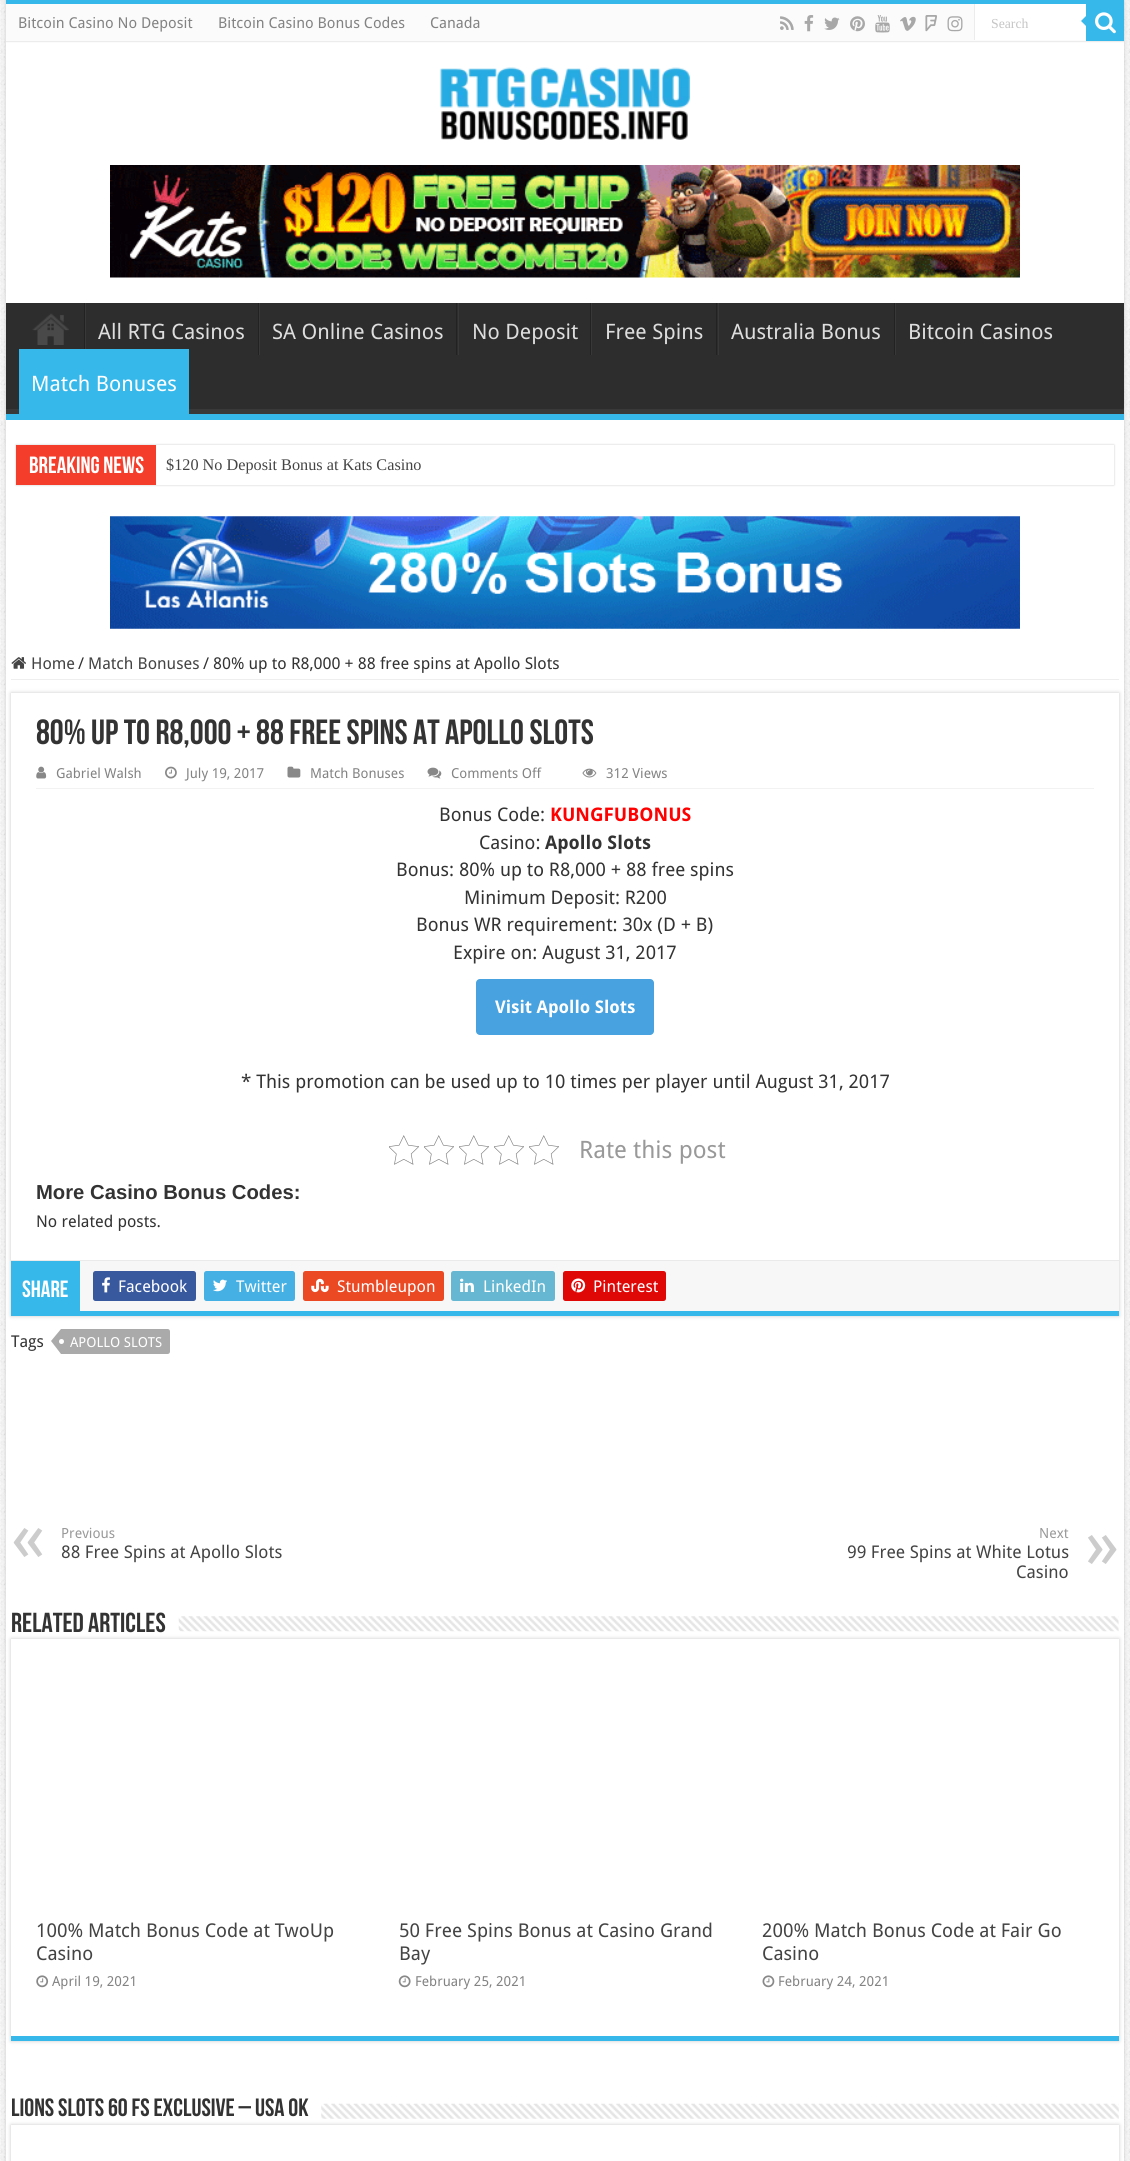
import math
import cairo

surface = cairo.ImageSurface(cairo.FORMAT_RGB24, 1130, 2161)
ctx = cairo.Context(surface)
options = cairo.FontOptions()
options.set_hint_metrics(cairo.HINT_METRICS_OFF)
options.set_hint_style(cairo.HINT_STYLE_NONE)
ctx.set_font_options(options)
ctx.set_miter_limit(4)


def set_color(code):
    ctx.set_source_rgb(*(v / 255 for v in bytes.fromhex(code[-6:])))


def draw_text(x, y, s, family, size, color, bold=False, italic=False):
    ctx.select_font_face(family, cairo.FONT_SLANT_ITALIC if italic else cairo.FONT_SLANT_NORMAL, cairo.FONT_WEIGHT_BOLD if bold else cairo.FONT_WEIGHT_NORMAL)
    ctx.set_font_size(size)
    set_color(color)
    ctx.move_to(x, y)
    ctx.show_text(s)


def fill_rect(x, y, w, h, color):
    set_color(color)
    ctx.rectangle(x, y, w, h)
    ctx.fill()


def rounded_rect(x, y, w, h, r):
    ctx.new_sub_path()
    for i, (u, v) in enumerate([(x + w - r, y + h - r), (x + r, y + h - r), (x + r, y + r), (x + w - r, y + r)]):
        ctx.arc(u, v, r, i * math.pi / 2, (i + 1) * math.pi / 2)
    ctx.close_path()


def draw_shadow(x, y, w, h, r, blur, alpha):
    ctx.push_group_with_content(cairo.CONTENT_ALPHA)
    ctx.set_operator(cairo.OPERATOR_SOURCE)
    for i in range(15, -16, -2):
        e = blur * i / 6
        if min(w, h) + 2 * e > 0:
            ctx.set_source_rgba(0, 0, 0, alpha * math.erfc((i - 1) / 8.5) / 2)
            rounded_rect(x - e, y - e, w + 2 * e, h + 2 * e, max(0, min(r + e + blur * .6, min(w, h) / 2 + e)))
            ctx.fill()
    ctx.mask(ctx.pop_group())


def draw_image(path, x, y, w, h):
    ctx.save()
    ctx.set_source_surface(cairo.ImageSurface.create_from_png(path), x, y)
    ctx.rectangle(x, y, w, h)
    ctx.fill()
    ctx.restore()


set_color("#ffffff")
ctx.paint()
draw_image("assets/img1.png", 0, 0, 1130, 2161)
set_color("#cacaca")
draw_shadow(6, 0, 1118, 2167, 0, 2, 1)
fill_rect(6, 43, 1118, 2118, "#ffffff")
fill_rect(6, 0, 1118, 4, "#37b8eb")
fill_rect(6, 4, 1118, 39, "#fbfbfb")
fill_rect(6, 41, 1118, 1, "#ececec")
draw_text(18, 28, "Bitcoin Casino No Deposit", "Droid Sans", 15, "#838383")
draw_text(218, 28, "Bitcoin Casino Bonus Codes", "Droid Sans", 15, "#838383")
draw_text(430, 28, "Canada", "Droid Sans", 15, "#838383")
draw_image("assets/img2.png", 780, 16, 14, 14)
draw_image("assets/img3.png", 804, 15, 10, 17)
draw_image("assets/img4.png", 824, 17, 16, 13)
draw_image("assets/img5.png", 850, 16, 15, 16)
draw_image("assets/img6.png", 875, 15, 15, 18)
draw_image("assets/img7.png", 900, 16, 16, 15)
draw_image("assets/img8.png", 925, 15, 12, 17)
draw_image("assets/img9.png", 947, 16, 16, 16)
fill_rect(975, 4, 111, 36, "#ffffff")
fill_rect(974, 4, 1, 36, "#ececec")
draw_text(991, 28, "Search", "Liberation Serif", 13.75, "#c5c5c5")
fill_rect(1086, 4, 38, 37, "#37b8eb")
draw_image("assets/img10.png", 1095, 12, 21, 22)
ctx.new_path()
ctx.move_to(1086, 16)
ctx.line_to(1086, 26)
ctx.line_to(1081, 21)
ctx.close_path()
ctx.fill()
draw_image("assets/img11.png", 440, 67, 250, 73)
draw_image("assets/img12.png", 110, 165, 910, 113)
fill_rect(6, 303, 1118, 106, "#2d2d2d")
ctx.save()
ctx.rectangle(6, 303, 1118, 111)
ctx.clip()
set_color("#393939")
ctx.set_fill_rule(cairo.FILL_RULE_EVEN_ODD)
ctx.new_path()
ctx.move_to(-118, 179)
ctx.line_to(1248, 179)
ctx.line_to(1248, 538)
ctx.line_to(-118, 538)
ctx.close_path()
ctx.move_to(5, 295)
ctx.line_to(1123, 295)
ctx.line_to(1124, 296)
ctx.line_to(1124, 408)
ctx.line_to(1123, 409)
ctx.line_to(5, 409)
ctx.curve_to(4, 409, 4, 408, 4, 408)
ctx.line_to(4, 296)
ctx.curve_to(4, 296, 4, 295, 5, 295)
ctx.close_path()
ctx.fill()
ctx.restore()
fill_rect(6, 414, 1118, 6, "#37b8eb")
draw_image("assets/img13.png", 32, 313, 37, 32)
fill_rect(84, 303, 1, 52, "#222222")
fill_rect(85, 303, 1, 52, "#383838")
draw_text(98, 339, "All RTG Casinos", "Droid Sans", 21.25, "#dddddd")
fill_rect(258, 303, 1, 52, "#222222")
fill_rect(259, 303, 1, 52, "#383838")
draw_text(272, 339, "SA Online Casinos", "Droid Sans", 21.25, "#dddddd")
fill_rect(456, 303, 1, 52, "#222222")
fill_rect(458, 303, 1, 52, "#383838")
draw_text(472, 339, "No Deposit", "Droid Sans", 21.25, "#dddddd")
fill_rect(590, 303, 1, 52, "#222222")
fill_rect(591, 303, 1, 52, "#383838")
draw_text(605, 339, "Free Spins", "Droid Sans", 21.25, "#dddddd")
fill_rect(716, 303, 1, 52, "#222222")
fill_rect(718, 303, 1, 52, "#383838")
draw_text(731, 339, "Australia Bonus", "Droid Sans", 21.25, "#dddddd")
fill_rect(894, 303, 1, 52, "#222222")
fill_rect(895, 303, 1, 52, "#383838")
draw_text(908, 339, "Bitcoin Casinos", "Droid Sans", 21.25, "#dddddd")
fill_rect(19, 349, 170, 65, "#37b8eb")
draw_text(31, 391, "Match Bonuses", "Droid Sans", 21.25, "#ffffff")
set_color("#cacaca")
draw_shadow(16, 445, 1098, 40, 0, 1, 1)
fill_rect(156, 445, 958, 40, "#ffffff")
fill_rect(16, 445, 140, 40, "#f43d2a")
draw_text(29, 473, "Breaking News", "Bebas Neue", 23.5, "#ffffff", bold=True)
draw_text(166, 470, "$120 No Deposit Bonus at Kats Casino", "Liberation Serif", 16.25, "#444444")
draw_image("assets/img14.png", 110, 516, 910, 113)
fill_rect(11, 679, 1108, 1, "#eeeeee")
draw_image("assets/img15.png", 11, 657, 15, 12)
draw_text(31, 669, "Home", "Droid Sans", 16.25, "#444444")
draw_text(78, 669, "/", "Droid Sans", 16.25, "#333333")
draw_text(88, 669, "Match Bonuses", "Droid Sans", 16.25, "#444444")
draw_text(203, 669, "/", "Droid Sans", 16.25, "#333333")
draw_text(213, 669, "80% up to R8,000 + 88 free spins at Apollo Slots", "Droid Sans", 16.25, "#333333")
set_color("#cacaca")
draw_shadow(11, 693, 1108, 623, 0, 2, 1)
fill_rect(11, 693, 1108, 567, "#ffffff")
fill_rect(11, 1311, 1108, 5, "#37b8eb")
draw_text(36, 744, "80% up to R8,000 + 88 free spins at Apollo Slots", "Bebas Neue", 35, "#333333", bold=True)
fill_rect(36, 788, 1058, 1, "#f2f2f2")
draw_image("assets/img16.png", 36, 766, 11, 13)
draw_text(56, 778, "Gabriel Walsh", "Droid Sans", 13.75, "#838383")
draw_image("assets/img17.png", 165, 766, 12, 13)
draw_text(186, 778, "July 19, 2017", "Droid Sans", 13.75, "#838383")
draw_image("assets/img18.png", 287, 766, 14, 12)
draw_text(310, 778, "Match Bonuses", "Droid Sans", 13.75, "#838383")
draw_image("assets/img19.png", 427, 767, 15, 12)
draw_text(451, 778, "Comments Off", "Droid Sans", 13.75, "#838383")
draw_image("assets/img20.png", 582, 768, 15, 10)
draw_text(606, 778, "312 Views", "Droid Sans", 13.75, "#838383")
draw_text(439, 821, "Bonus Code:", "Droid Sans", 18.75, "#333333")
draw_text(550, 821, "KUNGFUBONUS", "Droid Sans", 18.75, "#ff0000", bold=True)
draw_text(479, 849, "Casino:", "Droid Sans", 18.75, "#333333")
draw_text(545, 849, "Apollo Slots", "Droid Sans", 18.75, "#333333", bold=True)
draw_text(396, 876, "Bonus: 80% up to R8,000 + 88 free spins", "Droid Sans", 18.75, "#333333")
draw_text(464, 904, "Minimum Deposit: R200", "Droid Sans", 18.75, "#333333")
draw_text(416, 931, "Bonus WR requirement: 30x (D + B)", "Droid Sans", 18.75, "#333333")
draw_text(453, 959, "Expire on: August 31, 2017", "Droid Sans", 18.75, "#333333")
set_color("#48a2df")
rounded_rect(476, 979, 178, 56, 4)
ctx.fill()
draw_text(495, 1013, "Visit Apollo Slots", "Droid Sans", 17.5, "#ffffff", bold=True)
draw_text(241, 1088, "* This promotion can be used up to 10 times per player until August 31, 2017", "Droid Sans", 18.75, "#333333")
draw_image("assets/img21.png", 389, 1135, 30, 30)
draw_image("assets/img21.png", 424, 1135, 30, 30)
draw_image("assets/img21.png", 459, 1135, 30, 30)
draw_image("assets/img21.png", 494, 1135, 30, 30)
draw_image("assets/img21.png", 529, 1135, 30, 30)
draw_text(579, 1158, "Rate this post", "Droid Sans", 24, "#999999")
draw_text(36, 1199, "More Casino Bonus Codes:", "Liberation Sans", 20.25, "#333333", bold=True)
draw_text(36, 1227, "No related posts.", "Droid Sans", 16.25, "#333333")
fill_rect(80, 1261, 1039, 50, "#f7f7f7")
fill_rect(11, 1260, 1108, 1, "#eaeaea")
fill_rect(11, 1261, 69, 50, "#37b8eb")
draw_text(22, 1297, "Share", "Bebas Neue", 23.5, "#ffffff", bold=True)
set_color("#39599f")
rounded_rect(93, 1271, 103, 30, 2.5)
ctx.fill()
draw_image("assets/img22.png", 102, 1277, 8, 16)
draw_text(118, 1292, "Facebook", "Droid Sans", 16.25, "#ffffff")
set_color("#45b0e3")
rounded_rect(204, 1271, 91, 30, 2.5)
ctx.fill()
draw_image("assets/img23.png", 213, 1279, 14, 13)
draw_text(236, 1292, "Twitter", "Droid Sans", 16.25, "#ffffff")
set_color("#eb4924")
rounded_rect(303, 1271, 141, 30, 2.5)
ctx.fill()
draw_image("assets/img24.png", 311, 1278, 18, 15)
draw_text(337, 1292, "Stumbleupon", "Droid Sans", 16.25, "#ffffff")
set_color("#65b7d2")
rounded_rect(451, 1271, 104, 30, 2.5)
ctx.fill()
draw_image("assets/img25.png", 460, 1278, 14, 14)
draw_text(483, 1292, "LinkedIn", "Droid Sans", 16.25, "#ffffff")
set_color("#e00707")
rounded_rect(563, 1271, 103, 30, 2.5)
ctx.fill()
draw_image("assets/img26.png", 571, 1278, 15, 15)
draw_text(593, 1292, "Pinterest", "Droid Sans", 16.25, "#ffffff")
draw_text(11, 1347, "Tags", "Droid Sans", 16.25, "#333333")
set_color("#aaaaaa")
ctx.new_path()
ctx.move_to(61, 1329)
ctx.line_to(167.5, 1329)
ctx.curve_to(169, 1329, 170, 1330, 170, 1331.5)
ctx.line_to(170, 1351.5)
ctx.curve_to(170, 1353, 169, 1354, 167.5, 1354)
ctx.line_to(61, 1354)
ctx.close_path()
ctx.fill()
ctx.new_path()
ctx.move_to(61, 1329)
ctx.line_to(61, 1354)
ctx.line_to(51, 1341)
ctx.close_path()
ctx.fill()
set_color("#ffffff")
ctx.arc(61.5, 1341.5, 2.5, 0, 2 * math.pi)
ctx.fill()
draw_text(70, 1347, "APOLLO SLOTS", "Droid Sans", 13.75, "#ffffff")
draw_text(11, 1561, "«", "Droid Sans", 70, "#cccccc")
draw_text(61, 1538, "Previous", "Droid Sans", 14, "#999999")
draw_text(61, 1558, "88 Free Spins at Apollo Slots", "Droid Sans", 17.5, "#444444")
draw_text(1039, 1538, "Next", "Droid Sans", 14, "#999999")
draw_text(1085, 1568, "»", "Droid Sans", 70, "#cccccc")
draw_text(847, 1558, "99 Free Spins at White Lotus", "Droid Sans", 17.5, "#444444")
draw_text(1016, 1578, "Casino", "Droid Sans", 17.5, "#444444")
set_color("#cacaca")
draw_shadow(11, 1639, 1108, 402, 0, 2, 1)
draw_text(11, 1632, "Related Articles", "Bebas Neue", 27.5, "#333333", bold=True)
draw_image("assets/img27.png", 178, 1616, 941, 16)
fill_rect(11, 1639, 1108, 397, "#ffffff")
fill_rect(11, 2036, 1108, 5, "#37b8eb")
draw_text(36, 1937, "100% Match Bonus Code at TwoUp", "Droid Sans", 19, "#444444")
draw_text(36, 1960, "Casino", "Droid Sans", 19, "#444444")
draw_image("assets/img28.png", 36, 1975, 13, 13)
draw_text(52, 1986, "April 19, 2021", "Droid Sans", 13.75, "#838383")
draw_text(399, 1937, "50 Free Spins Bonus at Casino Grand", "Droid Sans", 19, "#444444")
draw_text(399, 1960, "Bay", "Droid Sans", 19, "#444444")
draw_image("assets/img29.png", 398, 1975, 13, 13)
draw_text(415, 1986, "February 25, 2021", "Droid Sans", 13.75, "#838383")
draw_text(762, 1937, "200% Match Bonus Code at Fair Go", "Droid Sans", 19, "#444444")
draw_text(762, 1960, "Casino", "Droid Sans", 19, "#444444")
draw_image("assets/img30.png", 762, 1975, 13, 13)
draw_text(778, 1986, "February 24, 2021", "Droid Sans", 13.75, "#838383")
draw_text(11, 2116, "Lions Slots 60 FS Exclusive – USA OK", "Bebas Neue", 25, "#333333", bold=True)
set_color("#cacaca")
draw_shadow(11, 2125, 1108, 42, 0, 2, 1)
draw_image("assets/img31.png", 321, 2103, 798, 16)
fill_rect(11, 2125, 1108, 36, "#ffffff")
surface.write_to_png("output.png")
